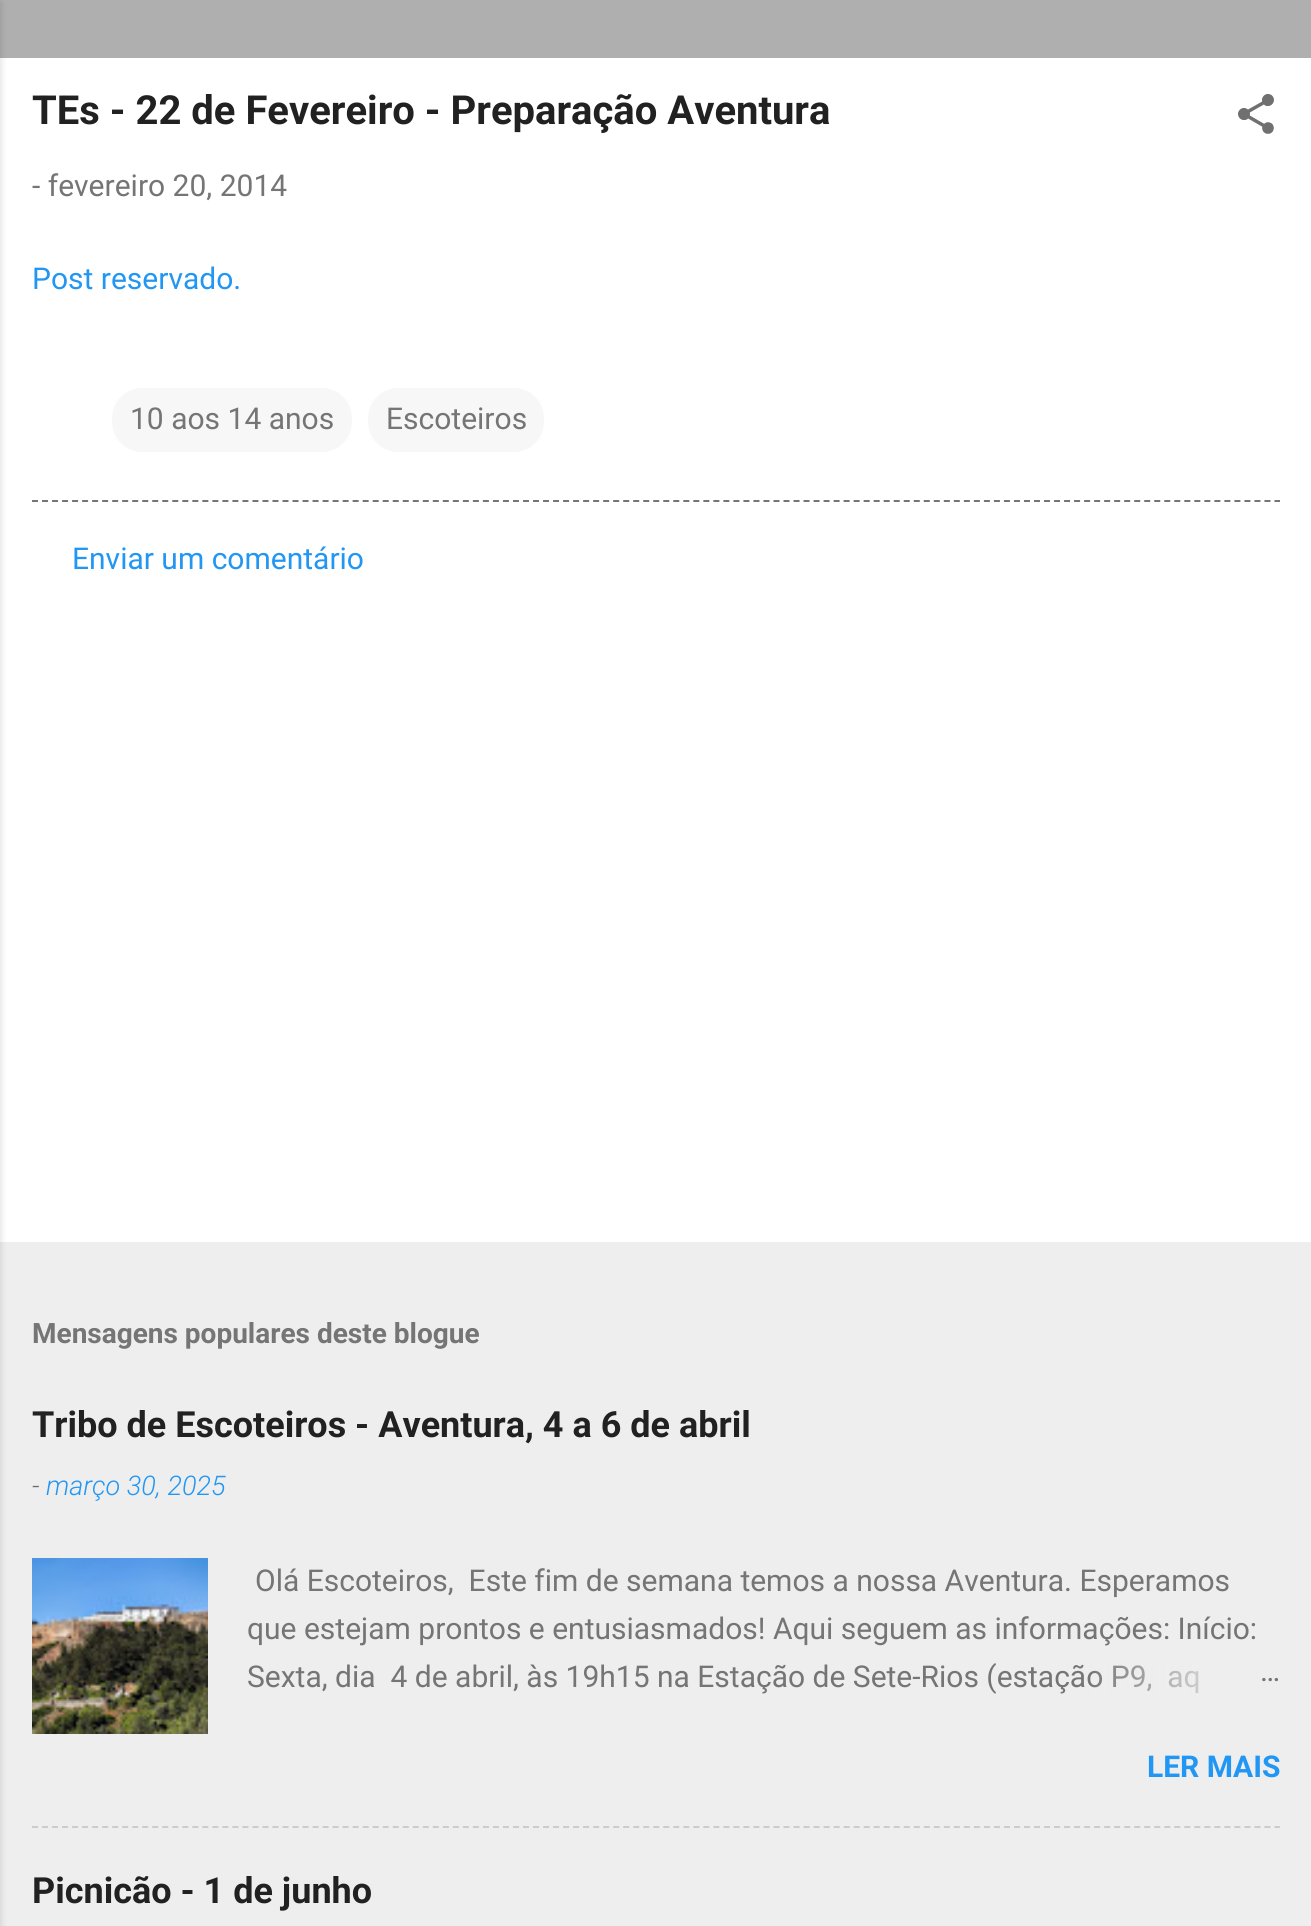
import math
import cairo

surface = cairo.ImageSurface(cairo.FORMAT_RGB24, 1311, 1926)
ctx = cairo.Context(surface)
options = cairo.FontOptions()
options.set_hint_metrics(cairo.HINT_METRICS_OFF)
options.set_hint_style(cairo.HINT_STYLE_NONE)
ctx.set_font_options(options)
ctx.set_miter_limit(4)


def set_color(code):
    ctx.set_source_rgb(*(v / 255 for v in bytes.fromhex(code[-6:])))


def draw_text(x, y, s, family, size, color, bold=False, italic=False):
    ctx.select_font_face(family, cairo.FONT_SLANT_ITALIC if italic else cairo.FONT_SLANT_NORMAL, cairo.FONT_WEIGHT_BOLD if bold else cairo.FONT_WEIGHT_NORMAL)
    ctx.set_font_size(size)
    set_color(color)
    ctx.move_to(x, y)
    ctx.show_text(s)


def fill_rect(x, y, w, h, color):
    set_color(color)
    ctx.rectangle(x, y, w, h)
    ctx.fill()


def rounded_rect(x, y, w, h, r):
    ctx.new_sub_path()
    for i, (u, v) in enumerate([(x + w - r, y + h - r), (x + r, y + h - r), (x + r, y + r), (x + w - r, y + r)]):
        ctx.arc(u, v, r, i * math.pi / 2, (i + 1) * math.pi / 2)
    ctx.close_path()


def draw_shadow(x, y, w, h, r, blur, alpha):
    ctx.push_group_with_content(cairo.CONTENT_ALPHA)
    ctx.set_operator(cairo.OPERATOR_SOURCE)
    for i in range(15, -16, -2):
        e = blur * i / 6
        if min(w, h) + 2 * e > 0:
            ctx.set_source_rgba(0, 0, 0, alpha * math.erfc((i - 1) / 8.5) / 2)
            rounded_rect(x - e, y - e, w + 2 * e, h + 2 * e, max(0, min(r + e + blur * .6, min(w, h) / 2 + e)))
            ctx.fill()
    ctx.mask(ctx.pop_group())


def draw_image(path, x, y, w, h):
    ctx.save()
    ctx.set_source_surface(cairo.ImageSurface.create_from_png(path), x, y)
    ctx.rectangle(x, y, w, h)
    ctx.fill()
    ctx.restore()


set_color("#eeeeee")
ctx.paint()
fill_rect(0, 0, 1311, 58, "#afafaf")
fill_rect(0, 58, 1311, 1184, "#ffffff")
set_color("#000000")
draw_shadow(-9, 2, 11, 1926, 0, 3, 0.1)
draw_text(32, 124, "TEs - 22 de Fevereiro - Preparação Aventura", "Roboto", 40, "#212121", bold=True)
draw_image("assets/img1.png", 1238, 94, 36, 40)
draw_text(32, 196, "- fevereiro 20, 2014", "Roboto", 30, "#757575")
draw_text(32, 289, "Post reservado.", "Roboto", 30, "#2196f3")
set_color("#f7f7f7")
rounded_rect(112, 388, 240, 64, 30)
ctx.fill()
draw_text(130, 429, "10 aos 14 anos", "Roboto", 30, "#757575")
set_color("#f7f7f7")
rounded_rect(368, 388, 176, 64, 30)
ctx.fill()
draw_text(386, 429, "Escoteiros", "Roboto", 30, "#757575")
ctx.new_path()
ctx.move_to(32, 501)
ctx.line_to(1280, 501)
ctx.set_dash([6, 4.02])
ctx.stroke()
draw_text(72, 569, "Enviar um comentário", "Roboto", 30, "#2196f3")
draw_text(32, 1343, "Mensagens populares deste blogue", "Roboto", 28, "#757575", bold=True)
draw_text(32, 1437, "Tribo de Escoteiros - Aventura, 4 a 6 de abril", "Roboto", 36, "#212121", bold=True)
draw_text(32, 1495, "-", "Roboto Light", 27, "#6d6d6d", italic=True)
draw_text(46, 1495, "março 30, 2025", "Roboto Light", 27, "#2196f3", italic=True)
draw_image("assets/img2.png", 32, 1558, 176, 176)
draw_text(255, 1591, "Olá Escoteiros,  Este fim de semana temos a nossa Aventura. Esperamos", "Roboto", 30, "#757575")
draw_text(247, 1639, "que estejam prontos e entusiasmados! Aqui seguem as informações: Início:", "Roboto", 30, "#757575")
draw_text(247, 1687, "Sexta, dia  4 de abril, às 19h15 na Estação de Sete-Rios (estação P9,  aq", "Roboto", 30, "#757575")
gradient = cairo.LinearGradient(1280, 1678, 1088, 1678)
gradient.add_color_stop_rgba(0, 0.933, 0.933, 0.933, 1)
gradient.add_color_stop_rgba(0.2, 0.933, 0.933, 0.933, 1)
gradient.add_color_stop_rgba(1, 0.933, 0.933, 0.933, 0)
ctx.set_source(gradient)
ctx.rectangle(1092, 1665, 107, 29)
ctx.fill()
draw_text(1260, 1681, "…", "Roboto", 30, "#757575")
draw_text(1147, 1777, "LER MAIS", "Roboto", 30, "#2196f3", bold=True)
ctx.new_path()
ctx.move_to(32, 1827)
ctx.line_to(1280, 1827)
set_color("#cccccc")
ctx.stroke()
draw_text(32, 1903, "Picnicão - 1 de junho", "Roboto", 36, "#212121", bold=True)
surface.write_to_png("output.png")
